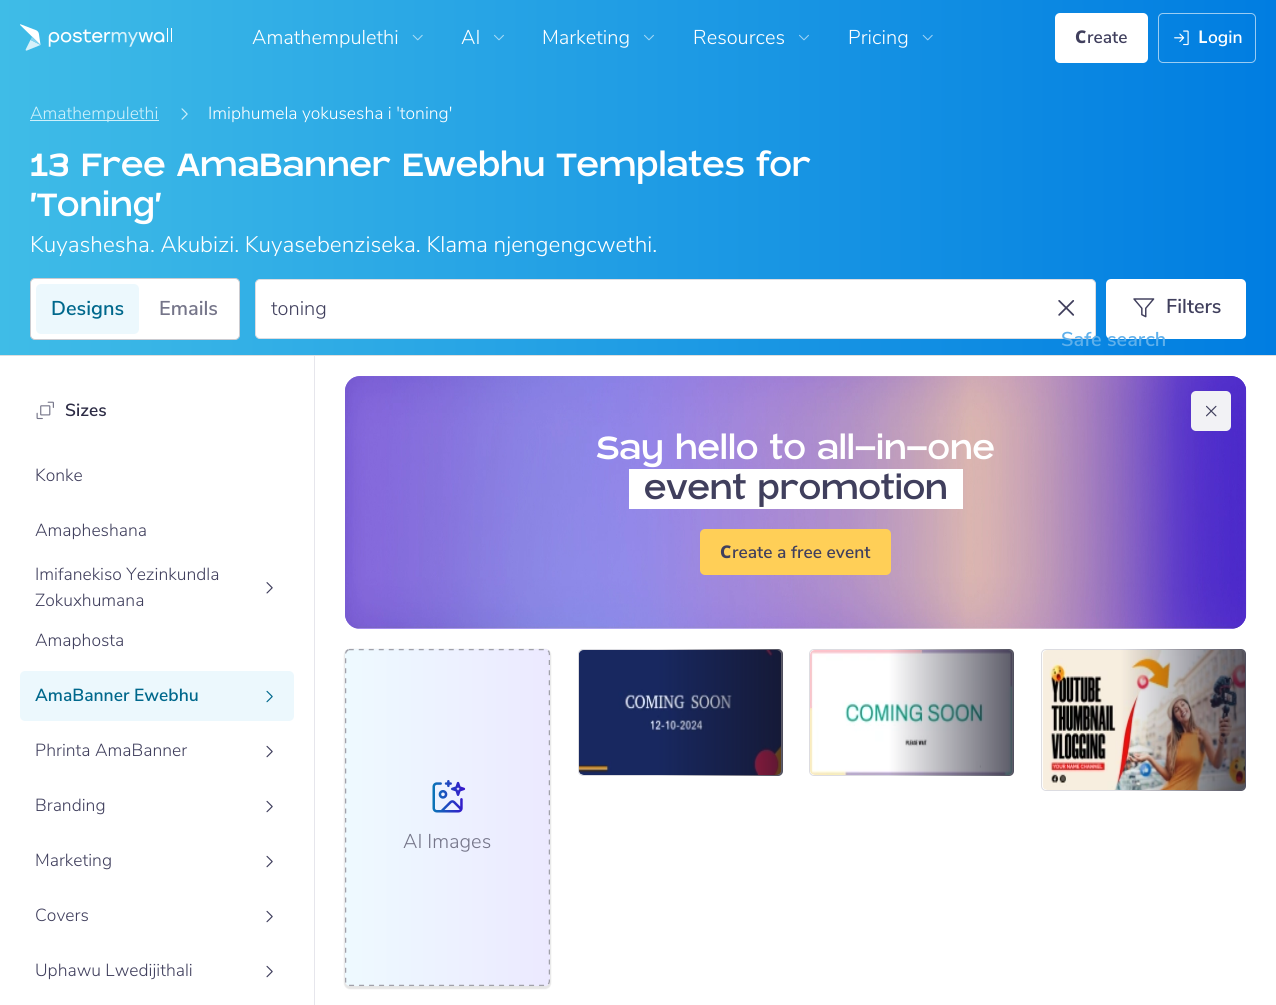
import math
import cairo

surface = cairo.ImageSurface(cairo.FORMAT_RGB24, 1276, 1005)
ctx = cairo.Context(surface)
options = cairo.FontOptions()
options.set_hint_metrics(cairo.HINT_METRICS_OFF)
options.set_hint_style(cairo.HINT_STYLE_NONE)
ctx.set_font_options(options)
ctx.set_miter_limit(4)


def set_color(code):
    ctx.set_source_rgb(*(v / 255 for v in bytes.fromhex(code[-6:])))


def draw_text(x, y, s, family, size, color, bold=False, italic=False):
    ctx.select_font_face(family, cairo.FONT_SLANT_ITALIC if italic else cairo.FONT_SLANT_NORMAL, cairo.FONT_WEIGHT_BOLD if bold else cairo.FONT_WEIGHT_NORMAL)
    ctx.set_font_size(size)
    set_color(color)
    ctx.move_to(x, y)
    ctx.show_text(s)


def fill_rect(x, y, w, h, color):
    set_color(color)
    ctx.rectangle(x, y, w, h)
    ctx.fill()


def rounded_rect(x, y, w, h, r):
    ctx.new_sub_path()
    for i, (u, v) in enumerate([(x + w - r, y + h - r), (x + r, y + h - r), (x + r, y + r), (x + w - r, y + r)]):
        ctx.arc(u, v, r, i * math.pi / 2, (i + 1) * math.pi / 2)
    ctx.close_path()


def draw_shadow(x, y, w, h, r, blur, alpha):
    ctx.push_group_with_content(cairo.CONTENT_ALPHA)
    ctx.set_operator(cairo.OPERATOR_SOURCE)
    for i in range(15, -16, -2):
        e = blur * i / 6
        if min(w, h) + 2 * e > 0:
            ctx.set_source_rgba(0, 0, 0, alpha * math.erfc((i - 1) / 8.5) / 2)
            rounded_rect(x - e, y - e, w + 2 * e, h + 2 * e, max(0, min(r + e + blur * .6, min(w, h) / 2 + e)))
            ctx.fill()
    ctx.mask(ctx.pop_group())


def draw_image(path, x, y, w, h):
    ctx.save()
    ctx.set_source_surface(cairo.ImageSurface.create_from_png(path), x, y)
    ctx.rectangle(x, y, w, h)
    ctx.fill()
    ctx.restore()


set_color("#ffffff")
ctx.paint()
gradient = cairo.LinearGradient(0, 38, 1276, 37)
gradient.add_color_stop_rgba(0, 0.247, 0.737, 0.906, 1)
gradient.add_color_stop_rgba(1, 0, 0.49, 0.882, 1)
ctx.set_source(gradient)
ctx.rectangle(0, 0, 1276, 75)
ctx.fill()
draw_image("assets/img1.png", 20, 24, 152, 27)
draw_text(252, 44, "Amathempulethi", "Nunito Sans Light", 20, "#ffffff")
draw_image("assets/img2.png", 412, 34, 11, 7)
draw_text(461, 44, "AI", "Nunito Sans Light", 20, "#ffffff")
draw_image("assets/img3.png", 494, 34, 10, 7)
draw_text(542, 44, "Marketing", "Nunito Sans Light", 20, "#ffffff")
draw_image("assets/img4.png", 644, 34, 10, 7)
draw_text(693, 44, "Resources", "Nunito Sans Light", 20, "#ffffff")
draw_image("assets/img5.png", 799, 34, 10, 7)
draw_text(848, 44, "Pricing", "Nunito Sans Light", 20, "#ffffff")
draw_image("assets/img6.png", 922, 34, 11, 7)
rounded_rect(1055, 13, 93, 50, 5)
ctx.fill()
draw_text(1075, 43, "C", "Noto Sans ExtraBold", 17.5, "#403f5d")
draw_text(1087, 43, "reate", "Nunito Sans SemiBold", 17.5, "#403f5d")
rounded_rect(1158.5, 13.5, 97, 49, 4.5)
ctx.set_source_rgba(1, 1, 1, 0.6)
ctx.set_line_width(1)
ctx.stroke()
draw_image("assets/img7.png", 1174, 30, 15, 16)
draw_text(1198, 43, "L", "Noto Sans SemiBold", 17.5, "#ffffff")
draw_text(1208, 43, "ogin", "Nunito Sans SemiBold", 17.5, "#ffffff")
gradient = cairo.LinearGradient(0, 215, 1276, 215)
gradient.add_color_stop_rgba(0, 0.247, 0.737, 0.906, 1)
gradient.add_color_stop_rgba(1, 0, 0.49, 0.882, 1)
ctx.set_source(gradient)
ctx.rectangle(0, 75, 1276, 280)
ctx.fill()
fill_rect(0, 355, 1276, 1, "#dedede")
fill_rect(30, 120, 129, 1, "#cdf0fb")
draw_text(30, 119, "Amathempulethi", "Nunito Sans Light", 17.5, "#cdf0fb")
draw_image("assets/img8.png", 181, 108, 7, 12)
draw_text(208, 119, "Imiphumela yokusesha i 'toning'", "Nunito Sans Light", 17.5, "#ffffff")
draw_text(30, 176, "13 Free AmaBanner Ewebhu Templates for", "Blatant", 40, "#ffffff")
draw_text(30, 216, "'Toning'", "Blatant", 40, "#ffffff")
draw_text(30, 252, "Kuyashesha. Akubizi. Kuyasebenziseka. Klama njengengcwethi.", "Nunito Sans Light", 22.5, "#ffffff")
rounded_rect(30.5, 278.5, 209, 61, 4.5)
ctx.fill_preserve()
set_color("#cbcbd0")
ctx.stroke()
set_color("#ecf8fd")
rounded_rect(36, 284, 103, 50, 5)
ctx.fill()
draw_text(51, 315, "Designs", "Nunito Sans SemiBold", 20, "#00688c")
draw_text(159, 315, "Emails", "Nunito Sans SemiBold", 20, "#757589")
set_color("#ffffff")
rounded_rect(255.5, 279.5, 840, 59, 4.5)
ctx.fill_preserve()
set_color("#dcdce1")
ctx.stroke()
draw_text(271, 315, "toning", "Nunito Sans Light", 20, "#403f5d")
draw_image("assets/img9.png", 1058, 300, 17, 16)
set_color("#ffffff")
rounded_rect(1106, 279, 140, 60, 5)
ctx.fill()
draw_image("assets/img10.png", 1133, 298, 22, 20)
draw_text(1166, 313, "Filters", "Nunito Sans SemiBold", 20, "#403f5d")
draw_text(1061, 346, "Safe search", "Nunito Sans SemiBold", 20, "#5fb0eb")
fill_rect(314, 356, 1, 649, "#e6e6ec")
draw_image("assets/img11.png", 36, 401, 18, 19)
draw_text(65, 416, "Sizes", "Nunito Sans SemiBold", 17.5, "#2c2b44")
draw_text(35, 481, "Konke", "Nunito Sans Light", 17.5, "#403f5d")
draw_text(35, 536, "Amapheshana", "Nunito Sans Light", 17.5, "#403f5d")
draw_text(35, 580, "Imifanekiso Yezinkundla", "Nunito Sans Light", 17.5, "#403f5d")
draw_text(35, 606, "Zokuxhumana", "Nunito Sans Light", 17.5, "#403f5d")
draw_image("assets/img12.png", 266, 582, 7, 12)
draw_text(35, 646, "Amaphosta", "Nunito Sans Light", 17.5, "#403f5d")
set_color("#ecf8fd")
rounded_rect(20, 671, 274, 50, 5)
ctx.fill()
draw_text(35, 701, "AmaBanner Ewebhu", "Nunito Sans SemiBold", 17.5, "#00688c")
draw_image("assets/img13.png", 266, 690, 7, 13)
draw_text(35, 756, "Phrinta AmaBanner", "Nunito Sans Light", 17.5, "#403f5d")
draw_image("assets/img14.png", 266, 745, 7, 13)
draw_text(35, 811, "Branding", "Nunito Sans Light", 17.5, "#403f5d")
draw_image("assets/img14.png", 266, 800, 7, 13)
draw_text(35, 866, "Marketing", "Nunito Sans Light", 17.5, "#403f5d")
draw_image("assets/img14.png", 266, 855, 7, 13)
draw_text(35, 921, "Covers", "Nunito Sans Light", 17.5, "#403f5d")
draw_image("assets/img14.png", 266, 910, 7, 13)
draw_text(35, 976, "Uphawu Lwedijithali", "Nunito Sans Light", 17.5, "#403f5d")
draw_image("assets/img14.png", 266, 965, 7, 13)
gradient = cairo.LinearGradient(343, 510, 1248, 495)
gradient.add_color_stop_rgba(0.02, 0.498, 0.373, 0.855, 1)
gradient.add_color_stop_rgba(0.34, 0.592, 0.533, 0.902, 1)
gradient.add_color_stop_rgba(0.73, 0.827, 0.678, 0.702, 1)
gradient.add_color_stop_rgba(0.99, 0.243, 0.11, 0.753, 1)
ctx.set_source(gradient)
rounded_rect(345, 376, 901, 253, 15)
ctx.fill()
draw_image("assets/img15.png", 345, 376, 902, 253)
set_color("#f2f2f5")
rounded_rect(1191, 391, 40, 40, 5)
ctx.fill()
draw_image("assets/img16.png", 1206, 405, 11, 12)
draw_text(596, 459, "Say hello to all-in-one", "Blatant", 40, "#ffffff")
fill_rect(629, 469, 334, 40, "#ffffff")
draw_text(644, 499, "event promotion", "Blatant", 40, "#403f5d")
set_color("#ffcf57")
rounded_rect(700, 529, 191, 46, 5)
ctx.fill()
draw_text(720, 558, "C", "Noto Sans ExtraBold", 17.5, "#403f5d")
draw_text(732, 558, "reate a free event", "Nunito Sans SemiBold", 17.5, "#403f5d")
rounded_rect(578.5, 649.5, 204, 126, 4.5)
set_color("#dcdce1")
ctx.stroke()
draw_image("assets/img17.png", 579, 650, 202, 125)
gradient = cairo.LinearGradient(578, 713, 783, 713)
gradient.add_color_stop_rgba(0.39, 0.078, 0.075, 0.145, 0)
gradient.add_color_stop_rgba(1, 0.078, 0.075, 0.145, 0.7)
ctx.set_source(gradient)
rounded_rect(578, 649, 205, 127, 5)
ctx.fill()
rounded_rect(809.5, 649.5, 204, 126, 4.5)
set_color("#dcdce1")
ctx.stroke()
draw_image("assets/img18.png", 810, 650, 203, 125)
gradient = cairo.LinearGradient(809, 713, 1014, 713)
gradient.add_color_stop_rgba(0.39, 0.078, 0.075, 0.145, 0)
gradient.add_color_stop_rgba(1, 0.078, 0.075, 0.145, 0.7)
ctx.set_source(gradient)
rounded_rect(809, 649, 205, 127, 5)
ctx.fill()
rounded_rect(1041.5, 649.5, 204, 141, 4.5)
set_color("#dcdce1")
ctx.stroke()
draw_image("assets/img19.png", 1042, 650, 203, 140)
gradient = cairo.LinearGradient(1041, 720, 1246, 720)
gradient.add_color_stop_rgba(0.39, 0.078, 0.075, 0.145, 0)
gradient.add_color_stop_rgba(1, 0.078, 0.075, 0.145, 0.7)
ctx.set_source(gradient)
rounded_rect(1041, 649, 205, 142, 5)
ctx.fill()
set_color("#000000")
draw_shadow(344, 649, 207, 340, 6, 0.5, 0.1)
gradient = cairo.LinearGradient(345, 818, 550, 818)
gradient.add_color_stop_rgba(0, 0.933, 0.98, 1, 1)
gradient.add_color_stop_rgba(1, 0.925, 0.914, 1, 1)
ctx.set_source(gradient)
rounded_rect(345, 649, 205, 337, 5)
ctx.fill()
draw_image("assets/img21.png", 432, 780, 34, 33)
draw_text(403, 848, "AI Images", "Nunito Sans Light", 20, "#757589")
draw_image("assets/img20.png", 345, 648, 205, 339)
surface.write_to_png("output.png")
